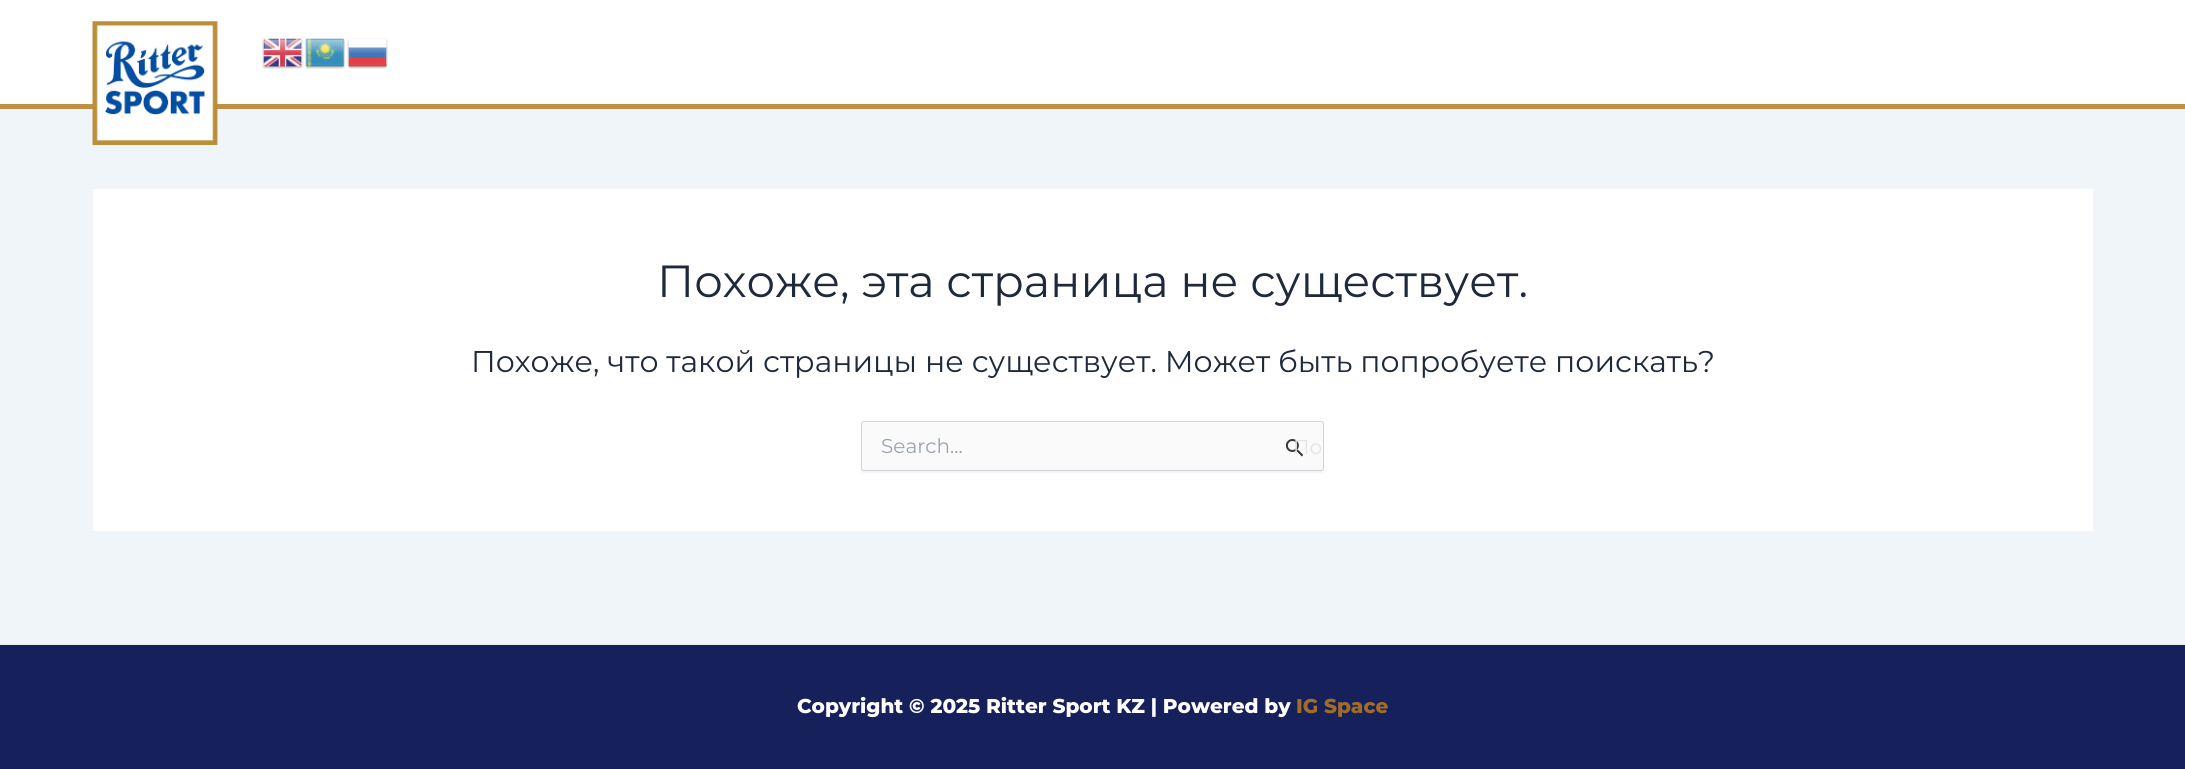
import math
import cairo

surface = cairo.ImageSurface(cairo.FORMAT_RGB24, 2185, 769)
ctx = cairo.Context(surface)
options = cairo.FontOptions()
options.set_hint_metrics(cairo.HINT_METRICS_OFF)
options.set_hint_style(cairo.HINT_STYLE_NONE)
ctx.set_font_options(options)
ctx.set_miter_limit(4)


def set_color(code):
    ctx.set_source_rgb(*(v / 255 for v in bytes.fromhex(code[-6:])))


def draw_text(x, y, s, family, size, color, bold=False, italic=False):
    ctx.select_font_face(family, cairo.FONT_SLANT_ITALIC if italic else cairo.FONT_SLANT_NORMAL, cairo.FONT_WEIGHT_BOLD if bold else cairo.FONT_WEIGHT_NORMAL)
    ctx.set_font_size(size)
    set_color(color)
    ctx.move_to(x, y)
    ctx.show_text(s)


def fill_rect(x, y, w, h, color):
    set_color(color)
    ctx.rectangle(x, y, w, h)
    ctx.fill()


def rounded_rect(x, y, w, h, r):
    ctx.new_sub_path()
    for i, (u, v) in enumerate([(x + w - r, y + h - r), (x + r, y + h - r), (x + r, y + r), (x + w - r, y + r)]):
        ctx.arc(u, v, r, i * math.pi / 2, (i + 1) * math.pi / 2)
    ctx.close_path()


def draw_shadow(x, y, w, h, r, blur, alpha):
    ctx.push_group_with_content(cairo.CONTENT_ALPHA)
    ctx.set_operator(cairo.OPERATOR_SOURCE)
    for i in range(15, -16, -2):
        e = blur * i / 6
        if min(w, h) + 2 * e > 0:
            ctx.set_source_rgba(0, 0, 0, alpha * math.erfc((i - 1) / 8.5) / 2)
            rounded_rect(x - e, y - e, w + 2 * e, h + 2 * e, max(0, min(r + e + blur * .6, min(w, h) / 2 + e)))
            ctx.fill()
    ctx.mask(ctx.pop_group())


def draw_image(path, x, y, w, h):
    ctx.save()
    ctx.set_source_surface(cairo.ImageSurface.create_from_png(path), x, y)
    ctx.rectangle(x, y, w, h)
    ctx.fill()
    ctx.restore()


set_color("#f0f5fa")
ctx.paint()
fill_rect(0, 0, 2185, 104, "#ffffff")
fill_rect(0, 104, 2185, 5, "#c09044")
draw_image("assets/img1.png", 92, 21, 126, 124)
draw_image("assets/img2.png", 262, 38, 41, 31)
draw_image("assets/img3.png", 305, 38, 40, 31)
draw_image("assets/img4.png", 347, 38, 41, 31)
fill_rect(93, 189, 2000, 342, "#ffffff")
draw_text(657, 297, "Похоже, эта страница не существует.", "Montserrat", 45, "#1e293b")
draw_text(471, 372, "Похоже, что такой страницы не существует. Может быть попробуете поискать?", "Montserrat", 30, "#1e293b")
set_color("#000000")
draw_shadow(861, 423, 463, 50, 2.5, 1, 0.05)
set_color("#fafafa")
rounded_rect(861.5, 421.5, 462, 49, 2)
ctx.fill_preserve()
set_color("#d1d5db")
ctx.set_line_width(1)
ctx.stroke()
draw_text(881, 453, "Search...", "Montserrat", 20, "#9ca3af")
draw_image("assets/img5.png", 1285, 439, 18, 18)
draw_text(1293, 454, "По", "Montserrat", 20, "#e4e4e5")
fill_rect(0, 645, 2185, 124, "#16205b")
fill_rect(0, 644, 2185, 1, "#eaeaea")
draw_text(797, 713, "Copyright © 2025 Ritter Sport KZ | Powered by", "Montserrat ExtraBold", 20, "#ffffff")
draw_text(1296, 713, "IG Space", "Montserrat ExtraBold", 20, "#a16b29")
surface.write_to_png("output.png")
